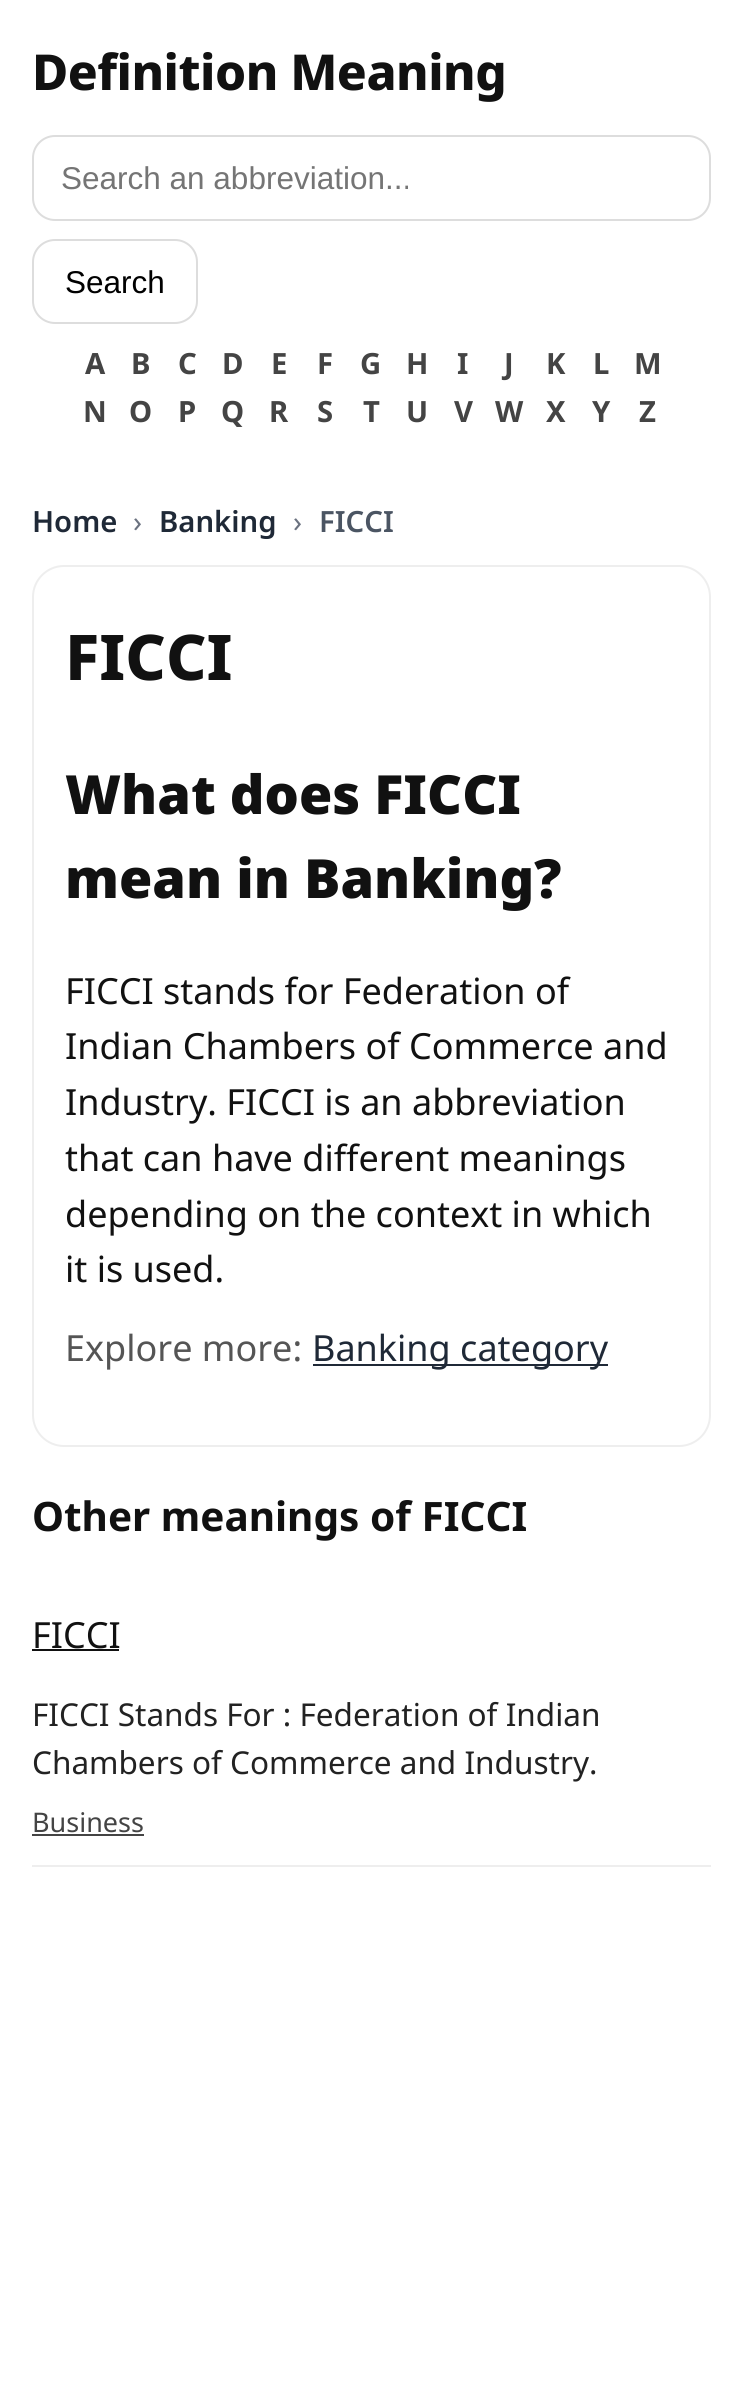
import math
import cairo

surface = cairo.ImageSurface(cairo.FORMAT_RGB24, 742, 2403)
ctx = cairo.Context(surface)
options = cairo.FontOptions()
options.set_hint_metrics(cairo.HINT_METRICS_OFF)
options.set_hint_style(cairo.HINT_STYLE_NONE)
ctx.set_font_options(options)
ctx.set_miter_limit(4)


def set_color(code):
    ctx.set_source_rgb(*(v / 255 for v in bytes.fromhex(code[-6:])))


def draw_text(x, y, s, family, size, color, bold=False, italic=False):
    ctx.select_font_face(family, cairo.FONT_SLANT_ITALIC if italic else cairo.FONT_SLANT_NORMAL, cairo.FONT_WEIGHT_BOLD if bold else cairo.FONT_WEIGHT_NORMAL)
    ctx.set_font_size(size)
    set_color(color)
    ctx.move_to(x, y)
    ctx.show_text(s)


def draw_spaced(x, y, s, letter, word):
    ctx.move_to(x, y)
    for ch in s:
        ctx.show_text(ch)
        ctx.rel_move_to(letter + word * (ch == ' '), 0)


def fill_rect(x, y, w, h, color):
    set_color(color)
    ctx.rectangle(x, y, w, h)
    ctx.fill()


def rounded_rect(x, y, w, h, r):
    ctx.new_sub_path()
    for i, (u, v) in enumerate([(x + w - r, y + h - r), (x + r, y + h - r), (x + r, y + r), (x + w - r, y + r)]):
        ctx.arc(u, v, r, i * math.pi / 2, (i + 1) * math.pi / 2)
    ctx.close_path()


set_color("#ffffff")
ctx.paint()
ctx.select_font_face("Noto Sans ExtraBold")
ctx.set_font_size(49.5)
set_color("#111111")
draw_spaced(32, 90, "Definition Meaning", -0.5, 0)
rounded_rect(33, 136, 677, 84, 22)
set_color("#dddddd")
ctx.stroke()
draw_text(61, 189, "Search an abbreviation...", "Liberation Sans", 31.5, "#757575")
rounded_rect(33, 240, 164, 83, 22)
set_color("#dddddd")
ctx.stroke()
draw_text(65, 293, "Search", "Liberation Sans", 31.5, "#000000")
draw_text(85, 374, "A", "Noto Sans", 29.25, "#444444", bold=True)
draw_text(131, 374, "B", "Noto Sans", 29.25, "#444444", bold=True)
draw_text(178, 374, "C", "Noto Sans", 29.25, "#444444", bold=True)
draw_text(222, 374, "D", "Noto Sans", 29.25, "#444444", bold=True)
draw_text(271, 374, "E", "Noto Sans", 29.25, "#444444", bold=True)
draw_text(317, 374, "F", "Noto Sans", 29.25, "#444444", bold=True)
draw_text(360, 374, "G", "Noto Sans", 29.25, "#444444", bold=True)
draw_text(406, 374, "H", "Noto Sans", 29.25, "#444444", bold=True)
draw_text(457, 374, "I", "Noto Sans", 29.25, "#444444", bold=True)
draw_text(504, 374, "J", "Noto Sans", 29.25, "#444444", bold=True)
draw_text(546, 374, "K", "Noto Sans", 29.25, "#444444", bold=True)
draw_text(593, 374, "L", "Noto Sans", 29.25, "#444444", bold=True)
draw_text(634, 374, "M", "Noto Sans", 29.25, "#444444", bold=True)
draw_text(83, 422, "N", "Noto Sans", 29.25, "#444444", bold=True)
draw_text(129, 422, "O", "Noto Sans", 29.25, "#444444", bold=True)
draw_text(178, 422, "P", "Noto Sans", 29.25, "#444444", bold=True)
draw_text(221, 422, "Q", "Noto Sans", 29.25, "#444444", bold=True)
draw_text(269, 422, "R", "Noto Sans", 29.25, "#444444", bold=True)
draw_text(317, 422, "S", "Noto Sans", 29.25, "#444444", bold=True)
draw_text(363, 422, "T", "Noto Sans", 29.25, "#444444", bold=True)
draw_text(406, 422, "U", "Noto Sans", 29.25, "#444444", bold=True)
draw_text(454, 422, "V", "Noto Sans", 29.25, "#444444", bold=True)
draw_text(495, 422, "W", "Noto Sans", 29.25, "#444444", bold=True)
draw_text(546, 422, "X", "Noto Sans", 29.25, "#444444", bold=True)
draw_text(592, 422, "Y", "Noto Sans", 29.25, "#444444", bold=True)
draw_text(639, 422, "Z", "Noto Sans", 29.25, "#444444", bold=True)
draw_text(32, 532, "Home", "Noto Sans SemiBold", 29.25, "#1f2937")
draw_text(133, 532, "›", "Noto Sans", 29.25, "#6b7280")
draw_text(159, 532, "Banking", "Noto Sans SemiBold", 29.25, "#1f2937")
draw_text(293, 532, "›", "Noto Sans", 29.25, "#6b7280")
draw_text(319, 532, "FICCI", "Noto Sans SemiBold", 29.25, "#4b5563")
rounded_rect(33, 566, 677, 880, 31)
set_color("#eeeeee")
ctx.stroke()
draw_text(65, 680, "FICCI", "Noto Sans ExtraBold", 63, "#111111")
draw_text(65, 814, "What does FICCI", "Noto Sans Black", 54, "#111111")
draw_text(65, 898, "mean in Banking?", "Noto Sans Black", 54, "#111111")
draw_text(65, 1004, "FICCI stands for Federation of", "Noto Sans", 36, "#111111")
draw_text(65, 1059, "Indian Chambers of Commerce and", "Noto Sans", 36, "#111111")
draw_text(65, 1115, "Industry. FICCI is an abbreviation", "Noto Sans", 36, "#111111")
draw_text(65, 1171, "that can have different meanings", "Noto Sans", 36, "#111111")
draw_text(65, 1227, "depending on the context in which", "Noto Sans", 36, "#111111")
draw_text(65, 1282, "it is used.", "Noto Sans", 36, "#111111")
draw_text(65, 1361, "Explore more:", "Noto Sans", 36, "#555555")
fill_rect(313, 1364, 295, 2, "#1f2937")
draw_text(312, 1361, "Banking category", "Noto Sans", 36, "#1f2937")
draw_text(32, 1531, "Other meanings of FICCI", "Noto Sans", 40.5, "#111111", bold=True)
draw_text(32, 1648, "FICCI", "Noto Sans", 36, "#111111")
fill_rect(32, 1649, 87, 2, "#111111")
fill_rect(32, 1865, 679, 2, "#eeeeee")
draw_text(32, 1726, "FICCI Stands For : Federation of Indian", "Noto Sans", 31.5, "#222222")
draw_text(32, 1774, "Chambers of Commerce and Industry.", "Noto Sans", 31.5, "#222222")
draw_text(32, 1832, "Business", "Noto Sans", 27, "#444444")
fill_rect(32, 1834, 112, 2, "#444444")
surface.write_to_png("output.png")
